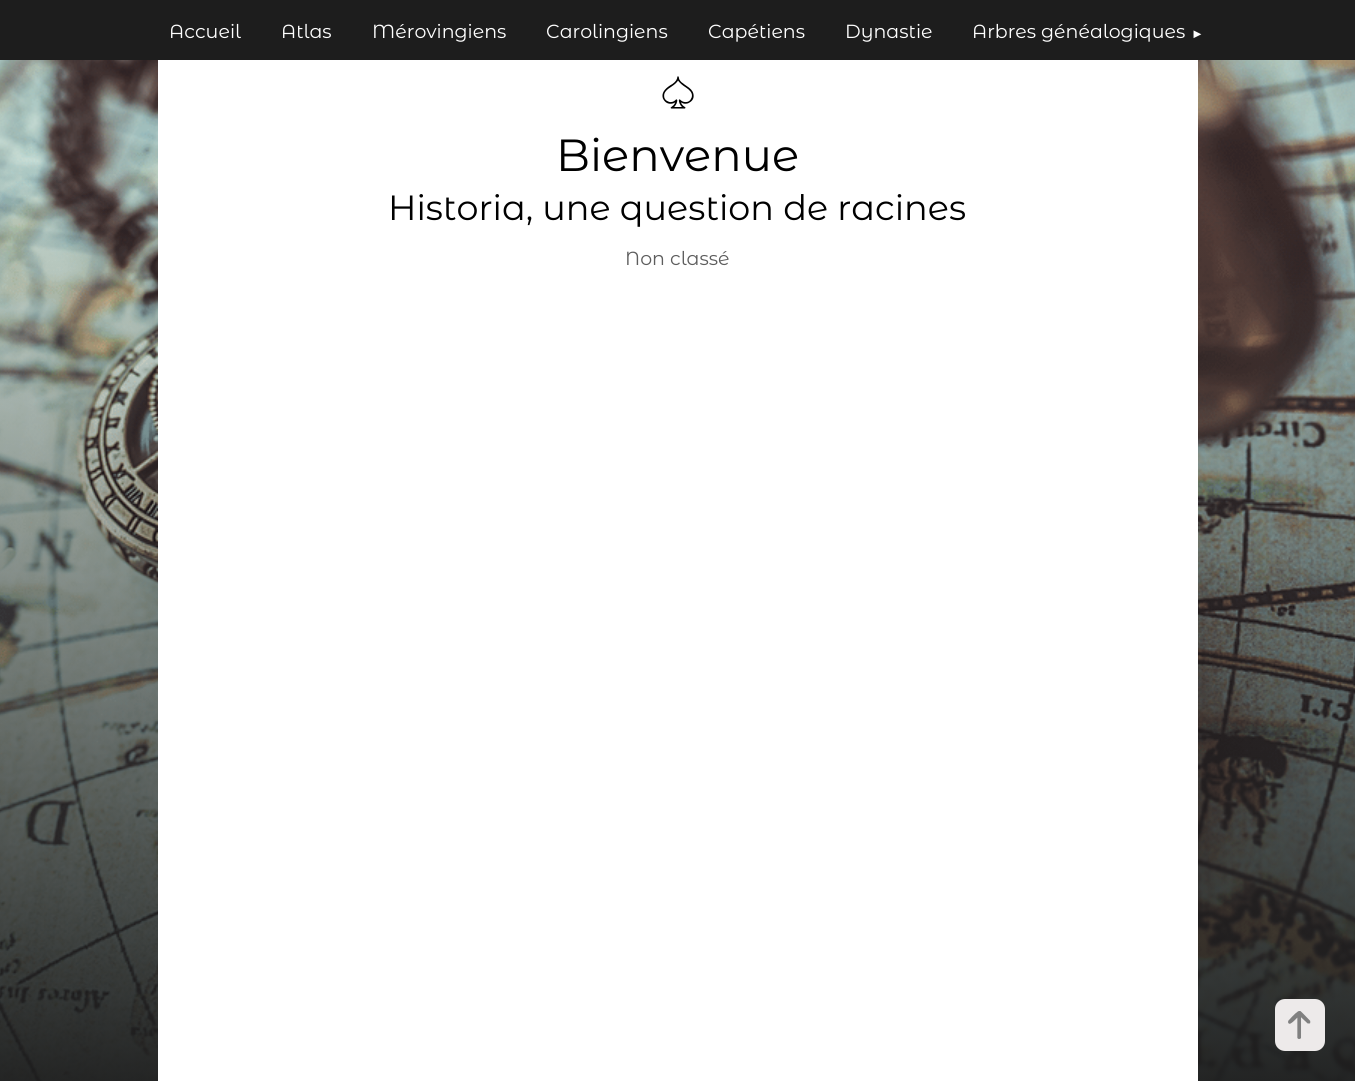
import math
import cairo

surface = cairo.ImageSurface(cairo.FORMAT_RGB24, 1355, 1081)
ctx = cairo.Context(surface)
options = cairo.FontOptions()
options.set_hint_metrics(cairo.HINT_METRICS_OFF)
options.set_hint_style(cairo.HINT_STYLE_NONE)
ctx.set_font_options(options)
ctx.set_miter_limit(4)


def set_color(code):
    ctx.set_source_rgb(*(v / 255 for v in bytes.fromhex(code[-6:])))


def draw_text(x, y, s, family, size, color, bold=False, italic=False):
    ctx.select_font_face(family, cairo.FONT_SLANT_ITALIC if italic else cairo.FONT_SLANT_NORMAL, cairo.FONT_WEIGHT_BOLD if bold else cairo.FONT_WEIGHT_NORMAL)
    ctx.set_font_size(size)
    set_color(color)
    ctx.move_to(x, y)
    ctx.show_text(s)


def fill_rect(x, y, w, h, color):
    set_color(color)
    ctx.rectangle(x, y, w, h)
    ctx.fill()


def rounded_rect(x, y, w, h, r):
    ctx.new_sub_path()
    for i, (u, v) in enumerate([(x + w - r, y + h - r), (x + r, y + h - r), (x + r, y + r), (x + w - r, y + r)]):
        ctx.arc(u, v, r, i * math.pi / 2, (i + 1) * math.pi / 2)
    ctx.close_path()


def draw_image(path, x, y, w, h):
    ctx.save()
    ctx.set_source_surface(cairo.ImageSurface.create_from_png(path), x, y)
    ctx.rectangle(x, y, w, h)
    ctx.fill()
    ctx.restore()


set_color("#ffffff")
ctx.paint()
draw_image("assets/img1.png", 0, 60, 1355, 1021)
fill_rect(0, 0, 1355, 60, "#1d1d1d")
draw_text(169, 38, "Accueil", "Montserrat Alternates", 19, "#ffffff")
draw_text(281, 38, "Atlas", "Montserrat Alternates", 19, "#ffffff")
draw_text(372, 38, "Mérovingiens", "Montserrat Alternates", 19, "#ffffff")
draw_text(546, 38, "Carolingiens", "Montserrat Alternates", 19, "#ffffff")
draw_text(708, 38, "Capétiens", "Montserrat Alternates", 19, "#ffffff")
draw_text(845, 38, "Dynastie", "Montserrat Alternates", 19, "#ffffff")
draw_text(972, 38, "Arbres généalogiques", "Montserrat Alternates", 19, "#ffffff")
draw_text(1191, 38, "►", "Liberation Serif", 13, "#ffffff")
fill_rect(158, 60, 1040, 1021, "#ffffff")
draw_image("assets/img2.png", 662, 76, 32, 33)
draw_text(556, 171, "Bienvenue", "Montserrat Alternates", 45, "#000000")
draw_text(388, 220, "Historia, une question de racines", "Montserrat Alternates", 35, "#000000")
draw_text(625, 265, "Non classé", "Montserrat Alternates", 19, "#5d5d5d")
set_color("#edeaea")
rounded_rect(1275, 999, 50, 52, 10)
ctx.fill()
draw_image("assets/img3.png", 1288, 1011, 23, 28)
surface.write_to_png("output.png")
